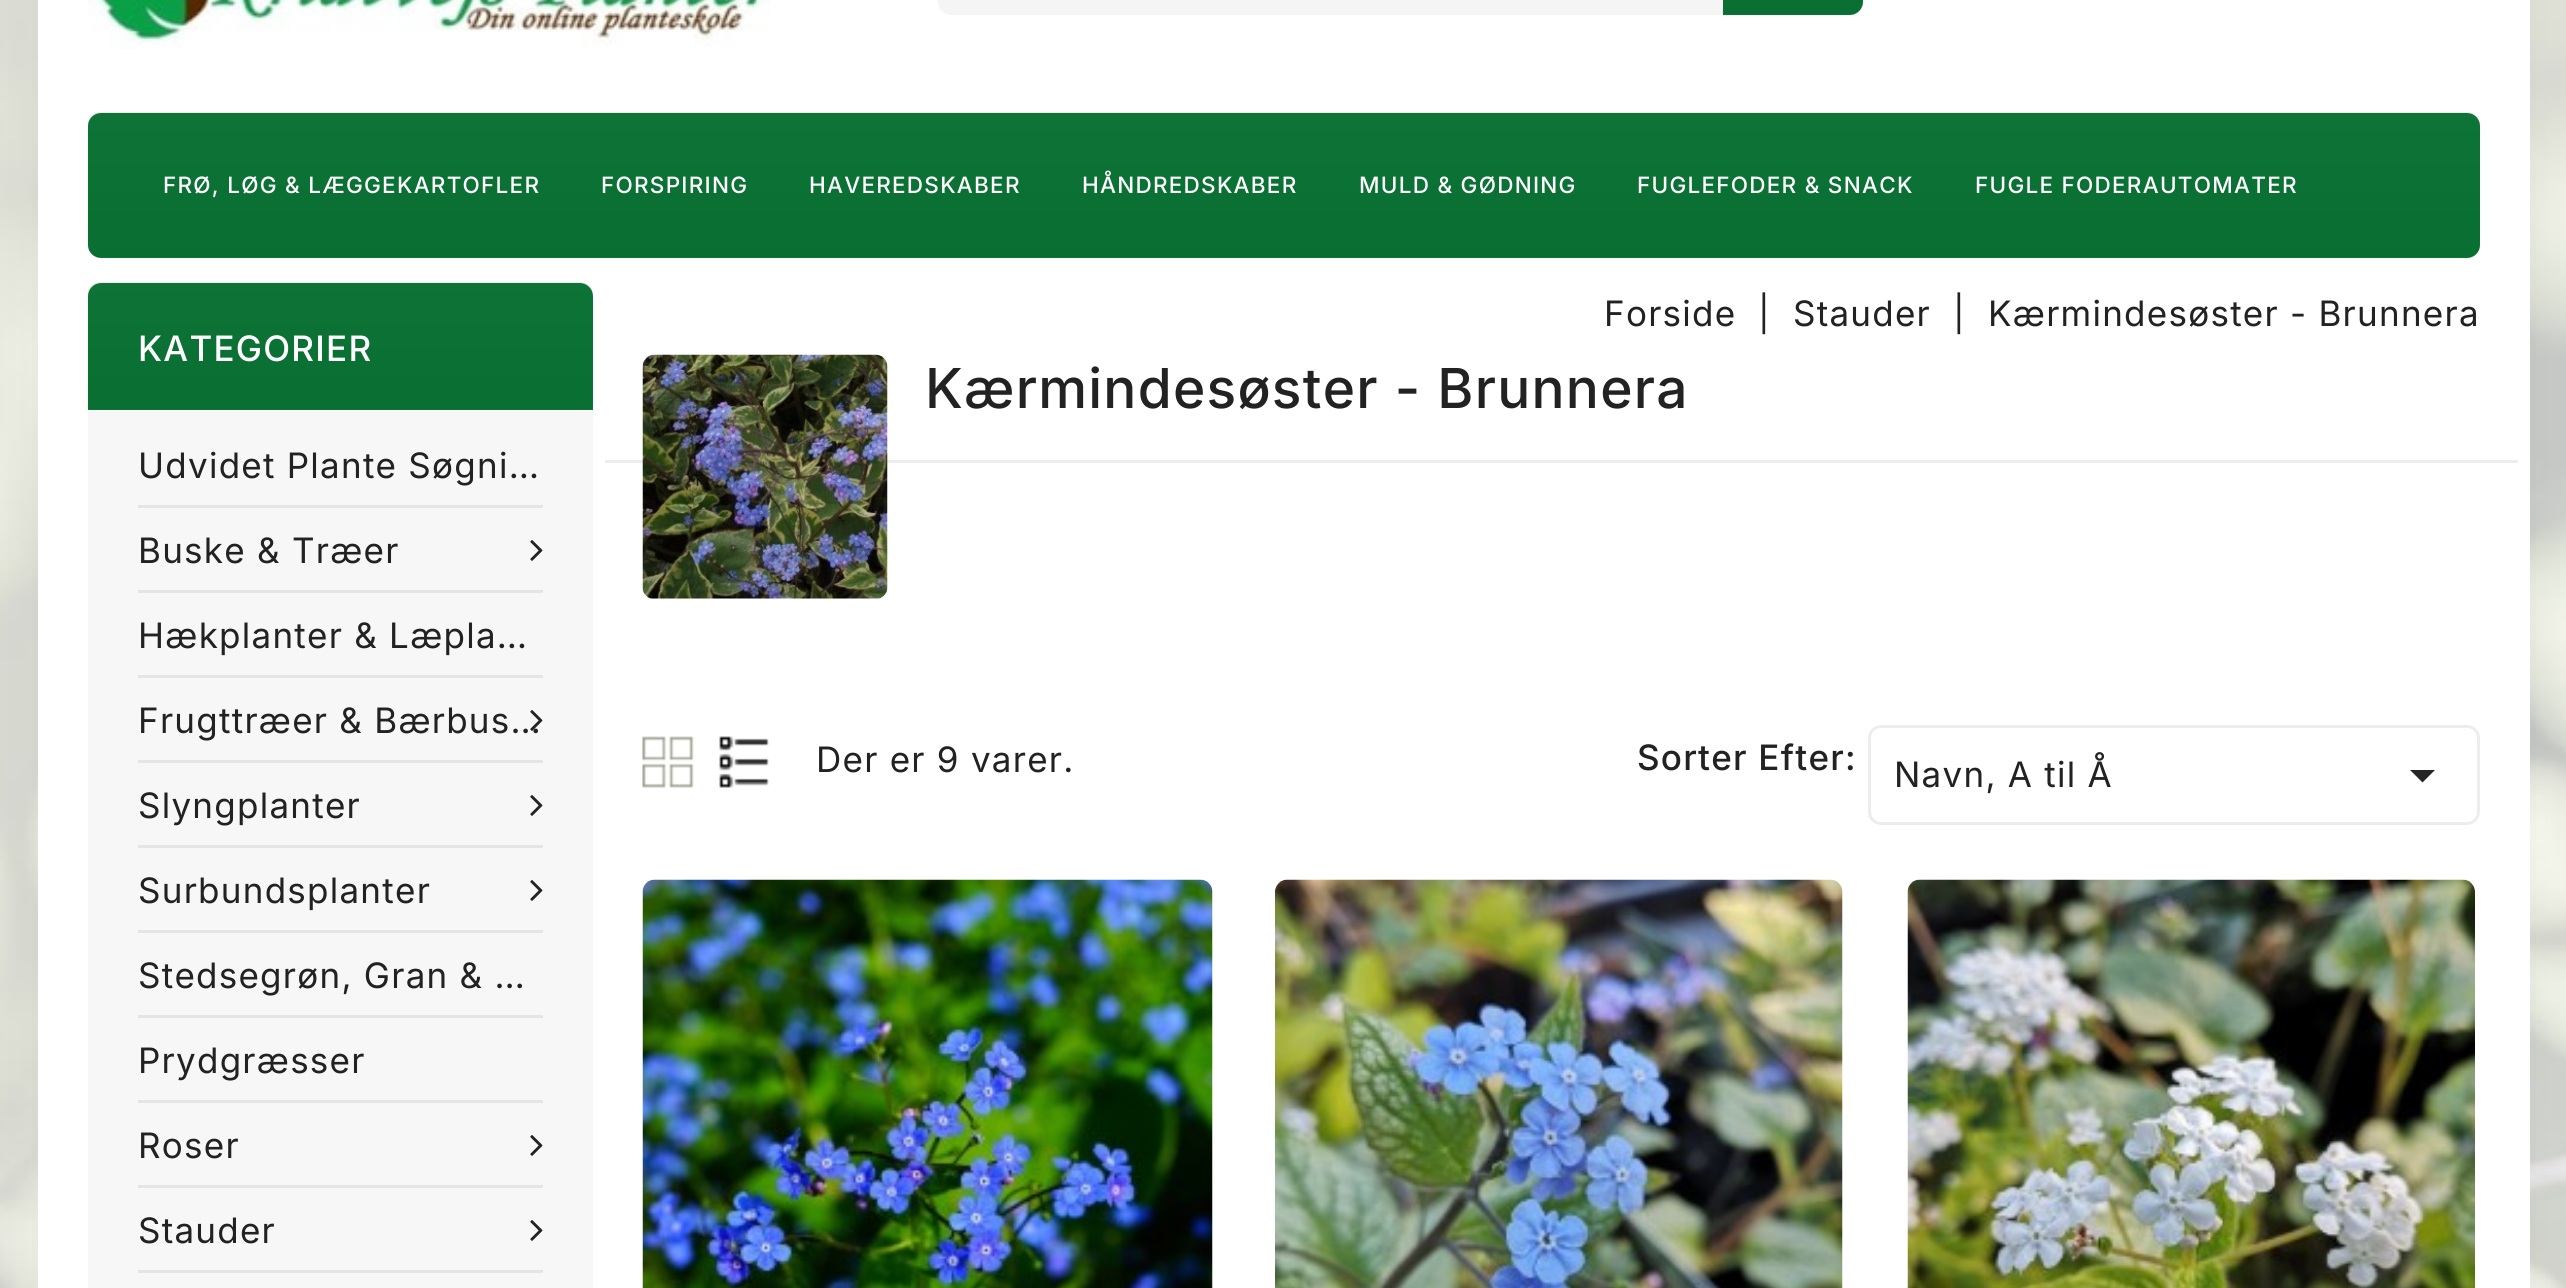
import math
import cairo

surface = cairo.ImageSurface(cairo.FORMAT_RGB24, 2566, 1288)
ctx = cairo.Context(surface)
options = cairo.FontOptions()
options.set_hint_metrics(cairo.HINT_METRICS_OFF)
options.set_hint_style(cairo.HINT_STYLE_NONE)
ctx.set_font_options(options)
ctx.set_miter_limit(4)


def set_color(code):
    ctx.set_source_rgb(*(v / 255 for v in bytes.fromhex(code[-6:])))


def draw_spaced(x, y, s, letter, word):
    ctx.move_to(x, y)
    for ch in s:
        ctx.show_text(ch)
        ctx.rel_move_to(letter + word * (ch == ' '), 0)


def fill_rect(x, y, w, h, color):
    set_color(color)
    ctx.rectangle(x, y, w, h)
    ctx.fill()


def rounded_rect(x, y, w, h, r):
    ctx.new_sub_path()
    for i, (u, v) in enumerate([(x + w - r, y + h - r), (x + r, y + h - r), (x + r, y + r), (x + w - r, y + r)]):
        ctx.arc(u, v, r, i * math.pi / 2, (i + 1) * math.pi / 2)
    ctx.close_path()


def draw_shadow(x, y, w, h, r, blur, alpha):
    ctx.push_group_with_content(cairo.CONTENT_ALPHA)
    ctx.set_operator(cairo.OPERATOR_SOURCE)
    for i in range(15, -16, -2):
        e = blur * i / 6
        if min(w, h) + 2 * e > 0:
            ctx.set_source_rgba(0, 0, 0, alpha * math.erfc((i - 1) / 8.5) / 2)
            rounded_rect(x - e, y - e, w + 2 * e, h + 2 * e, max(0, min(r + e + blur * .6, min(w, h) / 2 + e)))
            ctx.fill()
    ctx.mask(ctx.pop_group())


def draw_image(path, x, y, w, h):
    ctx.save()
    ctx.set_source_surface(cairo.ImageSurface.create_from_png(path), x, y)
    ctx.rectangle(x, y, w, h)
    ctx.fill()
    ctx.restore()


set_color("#ffffff")
ctx.paint()
draw_image("assets/img1.png", 0, 0, 2566, 1288)
set_color("#000000")
draw_shadow(38, -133, 2492, 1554, 25, 36, 0.05)
fill_rect(38, 0, 2492, 1288, "#ffffff")
draw_image("assets/img2.png", 88, 0, 683, 50)
set_color("#f5f5f5")
rounded_rect(938, -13, 925, 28, 13)
ctx.fill()
set_color("#077836")
ctx.new_path()
ctx.move_to(1723, -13)
ctx.line_to(1850, -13)
ctx.curve_to(1857, -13, 1863, -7, 1863, 0)
ctx.line_to(1863, 2)
ctx.curve_to(1863, 9, 1857, 15, 1850, 15)
ctx.line_to(1723, 15)
ctx.close_path()
ctx.fill()
draw_image("assets/img3.png", 1722, 0, 140, 14)
rounded_rect(88, 113, 2392, 145, 13)
ctx.fill()
draw_image("assets/img4.png", 87, 112, 2393, 145)
ctx.select_font_face("Inter Medium")
ctx.set_font_size(22.5)
set_color("#ffffff")
draw_spaced(163, 193, "FRØ, LØG & LÆGGEKARTOFLER", 1.25, 0)
draw_spaced(601, 193, "FORSPIRING", 1.25, 0)
draw_spaced(809, 193, "HAVEREDSKABER", 1.25, 0)
draw_spaced(1082, 193, "HÅNDREDSKABER", 1.25, 0)
draw_spaced(1359, 193, "MULD & GØDNING", 1.25, 0)
draw_spaced(1637, 193, "FUGLEFODER & SNACK", 1.25, 0)
draw_spaced(1975, 193, "FUGLE FODERAUTOMATER", 1.25, 0)
set_color("#077836")
ctx.new_path()
ctx.move_to(101, 283)
ctx.line_to(580, 283)
ctx.curve_to(587, 283, 593, 289, 593, 296)
ctx.line_to(593, 410)
ctx.line_to(88, 410)
ctx.line_to(88, 296)
ctx.curve_to(88, 289, 94, 283, 101, 283)
ctx.close_path()
ctx.fill()
draw_image("assets/img5.png", 87, 282, 505, 127)
ctx.set_font_size(35)
set_color("#ffffff")
draw_spaced(138, 361, "KATEGORIER", 1.25, 0)
fill_rect(88, 410, 505, 878, "#f7f7f7")
ctx.select_font_face("Inter")
set_color("#222222")
draw_spaced(138, 478, "Udvidet Plante Søgni…", 1.25, 0)
fill_rect(138, 505, 405, 3, "#e5e5e5")
set_color("#222222")
draw_spaced(138, 563, "Buske & Træer", 1.25, 0)
draw_image("assets/img6.png", 530, 540, 13, 21)
fill_rect(138, 590, 405, 3, "#e5e5e5")
set_color("#222222")
draw_spaced(138, 648, "Hækplanter & Læpla…", 1.25, 0)
fill_rect(138, 675, 405, 3, "#e5e5e5")
set_color("#222222")
draw_spaced(138, 733, "Frugttræer & Bærbus…", 1.25, 0)
draw_image("assets/img7.png", 530, 710, 13, 21)
fill_rect(138, 760, 405, 3, "#e5e5e5")
set_color("#222222")
draw_spaced(138, 818, "Slyngplanter", 1.25, 0)
draw_image("assets/img6.png", 530, 795, 13, 21)
fill_rect(138, 845, 405, 3, "#e5e5e5")
set_color("#222222")
draw_spaced(138, 903, "Surbundsplanter", 1.25, 0)
draw_image("assets/img6.png", 530, 880, 13, 21)
fill_rect(138, 930, 405, 3, "#e5e5e5")
set_color("#222222")
draw_spaced(138, 988, "Stedsegrøn, Gran & …", 1.25, 0)
fill_rect(138, 1015, 405, 3, "#e5e5e5")
set_color("#222222")
draw_spaced(138, 1073, "Prydgræsser", 1.25, 0)
fill_rect(138, 1100, 405, 3, "#e5e5e5")
set_color("#222222")
draw_spaced(138, 1158, "Roser", 1.25, 0)
draw_image("assets/img6.png", 530, 1135, 13, 21)
fill_rect(138, 1185, 405, 3, "#e5e5e5")
set_color("#222222")
draw_spaced(138, 1243, "Stauder", 1.25, 0)
draw_image("assets/img6.png", 530, 1220, 13, 21)
fill_rect(138, 1270, 405, 3, "#e5e5e5")
set_color("#222222")
draw_spaced(1604, 326, "Forside", 1.25, 0)
draw_spaced(1758, 326, "|", 1.25, 0)
draw_spaced(1793, 326, "Stauder", 1.25, 0)
draw_spaced(1953, 326, "|", 1.25, 0)
draw_spaced(1988, 326, "Kærmindesøster - Brunnera", 1.25, 0)
fill_rect(605, 460, 1913, 3, "#ededed")
draw_image("assets/img8.png", 642, 354, 246, 246)
ctx.select_font_face("Inter Medium")
ctx.set_font_size(55)
set_color("#222222")
draw_spaced(925, 408, "Kærmindesøster - Brunnera", 1.25, 0)
draw_image("assets/img9.png", 642, 736, 52, 52)
draw_image("assets/img10.png", 719, 736, 50, 52)
ctx.select_font_face("Inter")
ctx.set_font_size(35)
draw_spaced(816, 772, "Der er 9 varer.", 1.25, 0)
ctx.select_font_face("Inter Medium")
draw_spaced(1637, 770, "Sorter Efter:", 1.25, 0)
rounded_rect(1869.5, 726.5, 609, 97, 11.5)
set_color("#ededed")
ctx.set_line_width(3)
ctx.stroke()
ctx.select_font_face("Inter")
set_color("#222222")
draw_spaced(1894, 787, "Navn, A til Å", 1.25, 0)
set_color("#262626")
ctx.new_path()
ctx.move_to(2410, 770)
ctx.line_to(2435, 770)
ctx.line_to(2422.5, 782.5)
ctx.close_path()
ctx.fill()
draw_image("assets/img11.png", 642, 879, 571, 409)
draw_image("assets/img12.png", 1275, 879, 568, 409)
draw_image("assets/img13.png", 1907, 879, 568, 409)
surface.write_to_png("output.png")
